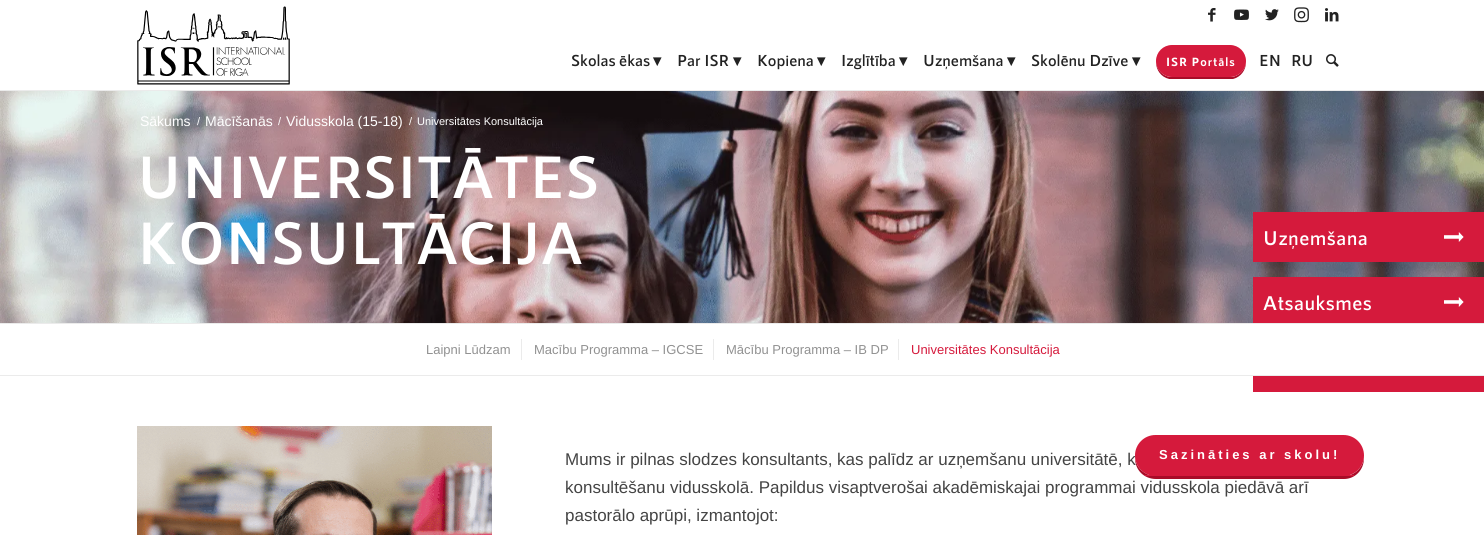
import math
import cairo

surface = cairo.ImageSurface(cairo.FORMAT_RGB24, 1484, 535)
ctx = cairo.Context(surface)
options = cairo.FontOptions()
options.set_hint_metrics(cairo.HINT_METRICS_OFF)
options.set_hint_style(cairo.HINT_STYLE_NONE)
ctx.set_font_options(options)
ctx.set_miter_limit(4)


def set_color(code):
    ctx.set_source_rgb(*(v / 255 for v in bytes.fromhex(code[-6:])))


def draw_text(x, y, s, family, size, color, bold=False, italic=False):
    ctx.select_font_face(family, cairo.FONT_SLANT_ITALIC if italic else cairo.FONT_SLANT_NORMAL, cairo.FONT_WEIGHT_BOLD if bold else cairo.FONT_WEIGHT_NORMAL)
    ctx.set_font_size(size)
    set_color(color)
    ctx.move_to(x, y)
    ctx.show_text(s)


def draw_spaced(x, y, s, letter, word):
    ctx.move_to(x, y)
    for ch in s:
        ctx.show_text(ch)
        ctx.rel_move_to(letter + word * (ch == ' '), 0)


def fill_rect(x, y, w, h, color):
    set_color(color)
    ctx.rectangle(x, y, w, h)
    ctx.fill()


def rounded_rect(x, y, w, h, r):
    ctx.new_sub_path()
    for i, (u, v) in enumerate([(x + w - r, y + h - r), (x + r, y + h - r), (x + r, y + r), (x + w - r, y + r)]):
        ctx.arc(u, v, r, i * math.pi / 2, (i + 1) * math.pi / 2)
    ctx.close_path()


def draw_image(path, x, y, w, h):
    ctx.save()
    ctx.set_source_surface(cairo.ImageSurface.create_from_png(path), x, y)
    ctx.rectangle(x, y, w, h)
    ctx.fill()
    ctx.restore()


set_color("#ffffff")
ctx.paint()
draw_image("assets/img1.png", 1208, 8, 8, 14)
draw_image("assets/img2.png", 1234, 9, 15, 11)
draw_image("assets/img3.png", 1265, 9, 14, 12)
draw_image("assets/img4.png", 1294, 7, 15, 16)
draw_image("assets/img5.png", 1325, 8, 14, 14)
fill_rect(0, 90, 1484, 1, "#ebebeb")
draw_image("assets/img6.png", 137, 6, 153, 79)
draw_text(571, 66, "Skolas ēkas", "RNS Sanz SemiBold", 16, "#222222")
draw_text(653, 66, "▾", "DejaVu Sans", 16, "#222222", bold=True)
draw_text(677, 66, "Par ISR", "RNS Sanz SemiBold", 16, "#222222")
draw_text(733, 66, "▾", "DejaVu Sans", 16, "#222222", bold=True)
draw_text(757, 66, "Kopiena", "RNS Sanz SemiBold", 16, "#222222")
draw_text(817, 66, "▾", "DejaVu Sans", 16, "#222222", bold=True)
draw_text(841, 66, "Izglītība", "RNS Sanz SemiBold", 16, "#222222")
draw_text(899, 66, "▾", "DejaVu Sans", 16, "#222222", bold=True)
draw_text(923, 66, "Uzņemšana", "RNS Sanz SemiBold", 16, "#222222")
draw_text(1007, 66, "▾", "DejaVu Sans", 16, "#222222", bold=True)
draw_text(1031, 66, "Skolēnu Dzīve", "RNS Sanz SemiBold", 16, "#222222")
draw_text(1132, 66, "▾", "DejaVu Sans", 16, "#222222", bold=True)
set_color("#a80c28")
ctx.new_path()
ctx.move_to(1156, 62)
ctx.curve_to(1156, 70, 1161, 77, 1169, 79)
ctx.line_to(1233, 79)
ctx.curve_to(1241, 77, 1246, 70, 1246, 62)
ctx.curve_to(1245, 70, 1239, 77, 1230, 77)
ctx.line_to(1172, 77)
ctx.curve_to(1163, 77, 1157, 70, 1156, 62)
ctx.close_path()
ctx.fill()
set_color("#d51a3c")
rounded_rect(1157, 46, 88, 30, 15)
ctx.fill_preserve()
ctx.stroke()
ctx.select_font_face("RNS Sanz", cairo.FONT_SLANT_NORMAL, cairo.FONT_WEIGHT_BOLD)
ctx.set_font_size(12)
set_color("#ffffff")
draw_spaced(1166, 66, "ISR Portāls", 1, 0)
draw_text(1259, 66, "EN", "RNS Sanz SemiBold", 16, "#222222")
draw_text(1291, 66, "RU", "RNS Sanz SemiBold", 16, "#222222")
draw_image("assets/img7.png", 1326, 54, 13, 13)
draw_image("assets/img8.png", 0, 91, 1484, 232)
draw_text(140, 126, "Sākums", "Liberation Sans", 14, "#ffffff")
draw_text(197, 125, "/", "Liberation Sans", 11, "#ffffff")
draw_text(205, 126, "Mācīšanās", "Liberation Sans", 14, "#ffffff")
draw_text(278, 125, "/", "Liberation Sans", 11, "#ffffff")
draw_text(286, 126, "Vidusskola (15-18)", "Liberation Sans", 14, "#ffffff")
draw_text(409, 125, "/", "Liberation Sans", 11, "#ffffff")
draw_text(417, 125, "Universitātes Konsultācija", "Liberation Sans", 11, "#ffffff")
draw_text(137, 198, "UNIVERSITĀTES", "RNS Sanz SemiBold", 60, "#ffffff")
draw_text(137, 264, "KONSULTĀCIJA", "RNS Sanz SemiBold", 60, "#ffffff")
fill_rect(0, 323, 1484, 1, "#ebebeb")
fill_rect(0, 375, 1484, 1, "#ebebeb")
draw_text(426, 354, "Laipni Lūdzam", "Liberation Sans", 13, "#919191")
fill_rect(521, 339, 1, 21, "#ebebeb")
draw_text(534, 354, "Macību Programma – IGCSE", "Liberation Sans", 13, "#919191")
fill_rect(713, 339, 1, 21, "#ebebeb")
draw_text(726, 354, "Mācību Programma – IB DP", "Liberation Sans", 13, "#919191")
fill_rect(898, 339, 1, 21, "#ebebeb")
draw_text(911, 354, "Universitātes Konsultācija", "Liberation Sans", 13, "#d51a3c")
draw_image("assets/img9.png", 137, 426, 355, 109)
draw_text(565, 465, "Mums ir pilnas slodzes konsultants, kas palīdz ar uzņemšanu universitātē, k", "Liberation Sans", 17, "#444444")
draw_text(565, 493, "konsultēšanu vidusskolā. Papildus visaptverošai akadēmiskajai programmai vidusskola piedāvā arī", "Liberation Sans", 17, "#444444")
draw_text(565, 521, "pastorālo aprūpi, izmantojot:", "Liberation Sans", 17, "#444444")
fill_rect(1253, 212, 231, 50, "#d51a3c")
ctx.select_font_face("RNS Sanz SemiBold")
ctx.set_font_size(20)
set_color("#ffffff")
draw_spaced(1263, 245, "Uzņemšana", 0.5, 0)
draw_image("assets/img10.png", 1444, 232, 20, 10)
fill_rect(1253, 277, 231, 46, "#d51a3c")
set_color("#ffffff")
draw_spaced(1263, 310, "Atsauksmes", 0.5, 0)
draw_image("assets/img10.png", 1444, 297, 20, 10)
fill_rect(1253, 376, 231, 16, "#d51a3c")
set_color("#a80c28")
ctx.new_path()
ctx.move_to(1135, 457)
ctx.line_to(1135, 458)
ctx.curve_to(1135, 470, 1144, 479, 1156, 479)
ctx.line_to(1344, 479)
ctx.curve_to(1355, 479, 1364, 470, 1364, 458)
ctx.line_to(1364, 457)
ctx.curve_to(1363, 468, 1354, 476, 1344, 476)
ctx.line_to(1156, 476)
ctx.curve_to(1145, 476, 1136, 468, 1135, 457)
ctx.close_path()
ctx.fill()
set_color("#d51a3c")
rounded_rect(1135, 435, 229, 41, 20.5)
ctx.fill()
fill_rect(1145, 475, 209, 1, "#d51a3c")
ctx.select_font_face("Liberation Sans", cairo.FONT_SLANT_NORMAL, cairo.FONT_WEIGHT_BOLD)
ctx.set_font_size(13)
set_color("#ffffff")
draw_spaced(1159, 459, "Sazināties ar skolu!", 3, 0)
surface.write_to_png("output.png")
